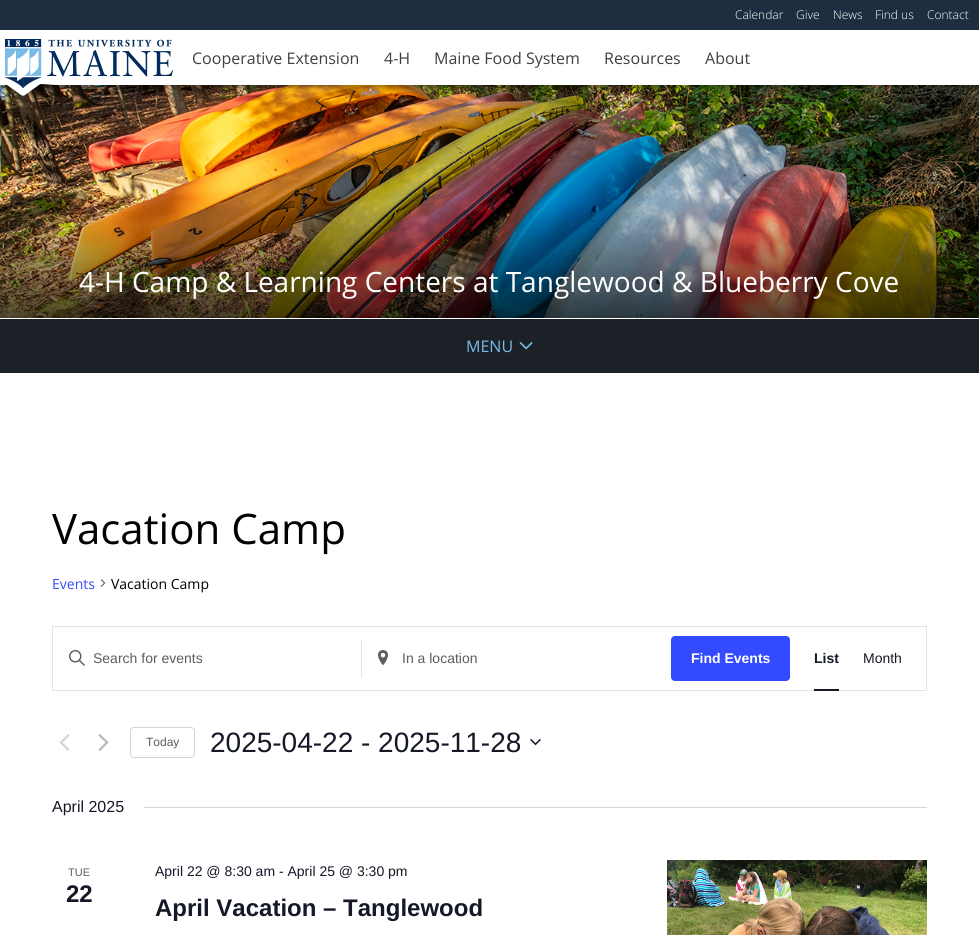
import math
import cairo

surface = cairo.ImageSurface(cairo.FORMAT_RGB24, 979, 935)
ctx = cairo.Context(surface)
options = cairo.FontOptions()
options.set_hint_metrics(cairo.HINT_METRICS_OFF)
options.set_hint_style(cairo.HINT_STYLE_NONE)
ctx.set_font_options(options)
ctx.set_miter_limit(4)


def set_color(code):
    ctx.set_source_rgb(*(v / 255 for v in bytes.fromhex(code[-6:])))


def draw_text(x, y, s, family, size, color, bold=False, italic=False):
    ctx.select_font_face(family, cairo.FONT_SLANT_ITALIC if italic else cairo.FONT_SLANT_NORMAL, cairo.FONT_WEIGHT_BOLD if bold else cairo.FONT_WEIGHT_NORMAL)
    ctx.set_font_size(size)
    set_color(color)
    ctx.move_to(x, y)
    ctx.show_text(s)


def fill_rect(x, y, w, h, color):
    set_color(color)
    ctx.rectangle(x, y, w, h)
    ctx.fill()


def rounded_rect(x, y, w, h, r):
    ctx.new_sub_path()
    for i, (u, v) in enumerate([(x + w - r, y + h - r), (x + r, y + h - r), (x + r, y + r), (x + w - r, y + r)]):
        ctx.arc(u, v, r, i * math.pi / 2, (i + 1) * math.pi / 2)
    ctx.close_path()


def draw_shadow(x, y, w, h, r, blur, alpha):
    ctx.push_group_with_content(cairo.CONTENT_ALPHA)
    ctx.set_operator(cairo.OPERATOR_SOURCE)
    for i in range(15, -16, -2):
        e = blur * i / 6
        if min(w, h) + 2 * e > 0:
            ctx.set_source_rgba(0, 0, 0, alpha * math.erfc((i - 1) / 8.5) / 2)
            rounded_rect(x - e, y - e, w + 2 * e, h + 2 * e, max(0, min(r + e + blur * .6, min(w, h) / 2 + e)))
            ctx.fill()
    ctx.mask(ctx.pop_group())


def draw_image(path, x, y, w, h):
    ctx.save()
    ctx.set_source_surface(cairo.ImageSurface.create_from_png(path), x, y)
    ctx.rectangle(x, y, w, h)
    ctx.fill()
    ctx.restore()


set_color("#ffffff")
ctx.paint()
fill_rect(0, 0, 979, 30, "#1c2e3f")
draw_text(735, 19, "Calendar", "Open Sans Light", 12, "#ffffff")
draw_text(796, 19, "Give", "Open Sans Light", 12, "#ffffff")
draw_text(833, 19, "News", "Open Sans Light", 12, "#ffffff")
draw_text(875, 19, "Find us", "Open Sans Light", 12, "#ffffff")
draw_text(927, 19, "Contact", "Open Sans Light", 12, "#ffffff")
draw_image("assets/img2.png", 0, 85, 979, 233)
ctx.save()
ctx.set_fill_rule(cairo.FILL_RULE_EVEN_ODD)
ctx.new_path()
ctx.move_to(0, 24)
ctx.line_to(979, 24)
ctx.line_to(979, 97)
ctx.line_to(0, 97)
ctx.close_path()
ctx.move_to(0, 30)
ctx.line_to(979, 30)
ctx.line_to(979, 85)
ctx.line_to(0, 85)
ctx.close_path()
ctx.clip()
set_color("#000000")
draw_shadow(0, 33, 979, 55, 0, 2.5, 0.35)
ctx.restore()
set_color("#000000")
draw_shadow(13, 70, 35, 20, 2, 5, 1)
set_color("#ffffff")
ctx.new_path()
ctx.move_to(7, 83)
ctx.line_to(32, 65)
ctx.curve_to(33, 64, 35, 64, 36, 65)
ctx.line_to(50, 75)
ctx.curve_to(51, 76, 51, 77, 50, 77)
ctx.line_to(25, 95)
ctx.curve_to(24, 96, 22, 96, 21, 95)
ctx.line_to(7, 85)
ctx.curve_to(6, 84, 6, 83, 7, 83)
ctx.close_path()
ctx.fill()
fill_rect(2, 58, 57, 26, "#ffffff")
draw_image("assets/img1.png", 5, 39, 168, 49)
draw_text(192, 64, "Cooperative Extension", "Open Sans", 16, "#404041")
draw_text(384, 64, "4-H", "Open Sans", 16, "#404041")
draw_text(434, 64, "Maine Food System", "Open Sans", 16, "#404041")
draw_text(604, 64, "Resources", "Open Sans", 16, "#404041")
draw_text(705, 64, "About", "Open Sans", 16, "#404041")
fill_rect(0, 319, 979, 54, "#1c2128")
draw_text(79, 292, "4-H Camp & Learning Centers at Tanglewood & Blueberry Cove", "Open Sans", 28, "#ffffff")
draw_text(466, 352, "MENU", "Open Sans", 16, "#79bce7")
draw_image("assets/img3.png", 519, 342, 14, 8)
draw_text(52, 544, "Vacation Camp", "Open Sans", 42, "#000000")
draw_text(52, 589, "Events", "Open Sans", 14, "#334aff")
draw_image("assets/img4.png", 100, 579, 6, 8)
draw_text(111, 589, "Vacation Camp", "Open Sans", 14, "#000000")
ctx.rectangle(52.5, 626.5, 874, 64)
set_color("#e4e4e4")
ctx.set_line_width(1)
ctx.stroke()
fill_rect(361, 639, 1, 39, "#e4e4e4")
draw_image("assets/img5.png", 69, 650, 16, 16)
draw_text(93, 663, "Search for events", "Liberation Sans", 14, "#5d5d5d")
draw_image("assets/img6.png", 378, 650, 10, 16)
draw_text(402, 663, "In a location", "Liberation Sans", 14, "#5d5d5d")
set_color("#334aff")
rounded_rect(671, 636, 119, 45, 4)
ctx.fill()
draw_text(691, 663, "Find Events", "Liberation Sans", 14, "#ffffff", bold=True)
draw_text(814, 663, "List", "Liberation Sans", 14, "#141827", bold=True)
fill_rect(814, 689, 25, 2, "#141827")
draw_text(863, 663, "Month", "Liberation Sans", 14, "#141827")
draw_image("assets/img7.png", 59, 734, 11, 17)
draw_image("assets/img8.png", 98, 734, 11, 17)
rounded_rect(130.5, 727.5, 64, 30, 3.5)
set_color("#d5d5d5")
ctx.stroke()
draw_text(146, 746, "Today", "Liberation Sans", 12, "#5d5d5d")
draw_text(210, 752, "2025-04-22 - 2025-11-28", "Liberation Sans", 28, "#141827")
draw_image("assets/img9.png", 530, 738, 11, 8)
draw_text(52, 812, "April 2025", "Liberation Sans", 16, "#141827")
fill_rect(144, 807, 783, 1, "#d5d5d5")
draw_text(68, 876, "TUE", "Liberation Sans", 11, "#5d5d5d")
draw_text(66, 902, "22", "Liberation Sans", 24, "#141827", bold=True)
draw_text(155, 876, "April 22 @ 8:30 am - April 25 @ 3:30 pm", "Liberation Sans", 14, "#141827")
draw_text(155, 916, "April Vacation – Tanglewood", "Liberation Sans", 24, "#141827", bold=True)
draw_image("assets/img10.png", 667, 860, 260, 75)
surface.write_to_png("output.png")
